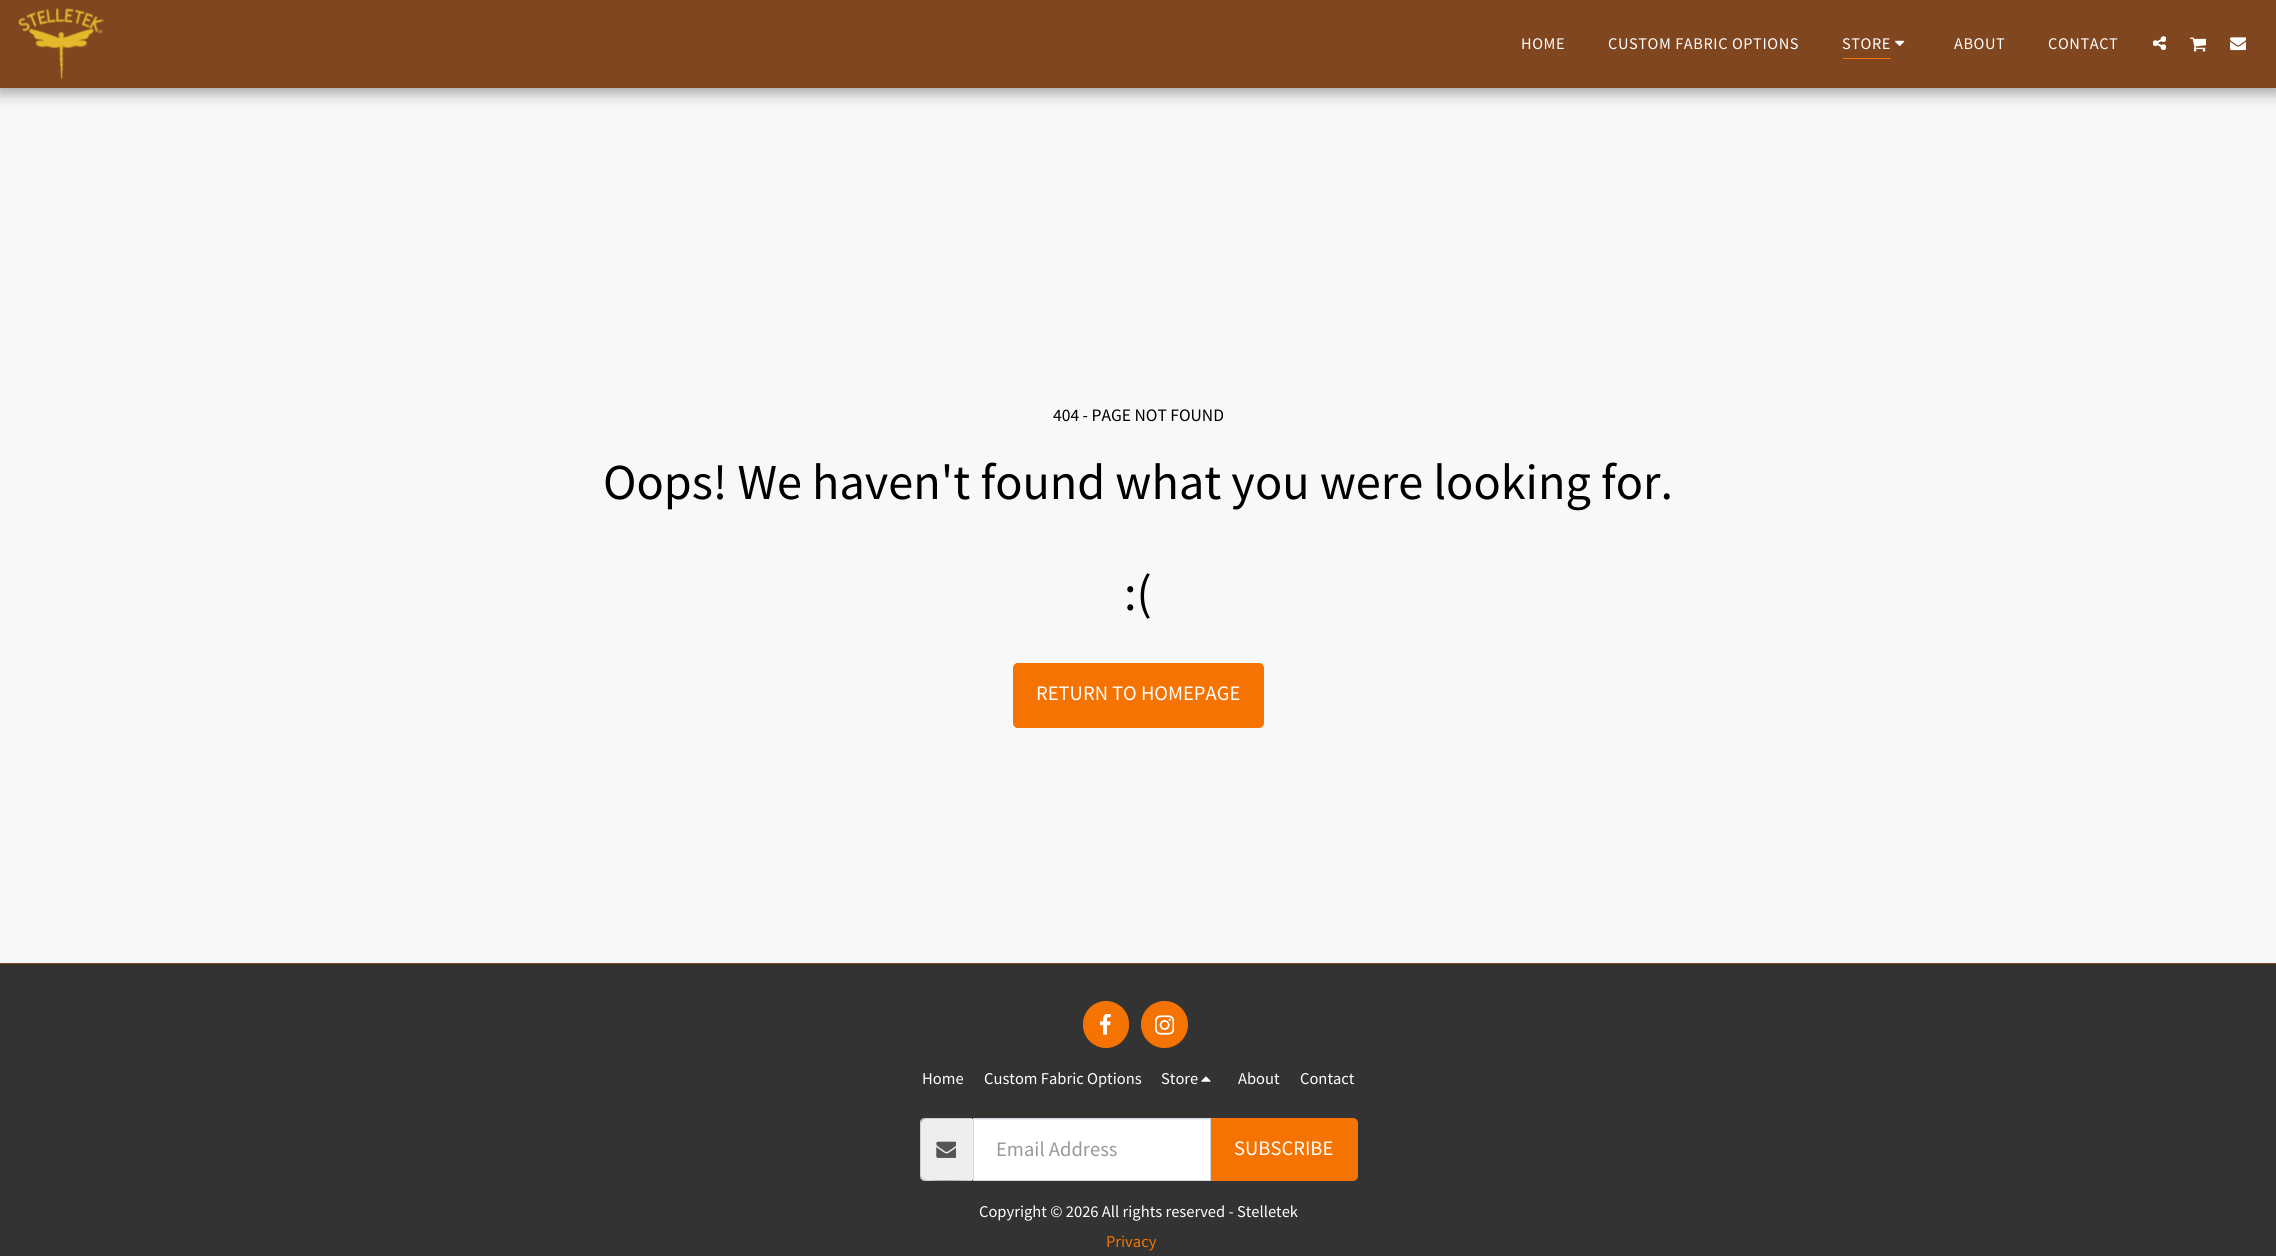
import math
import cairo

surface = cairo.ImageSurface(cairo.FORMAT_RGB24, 2276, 1256)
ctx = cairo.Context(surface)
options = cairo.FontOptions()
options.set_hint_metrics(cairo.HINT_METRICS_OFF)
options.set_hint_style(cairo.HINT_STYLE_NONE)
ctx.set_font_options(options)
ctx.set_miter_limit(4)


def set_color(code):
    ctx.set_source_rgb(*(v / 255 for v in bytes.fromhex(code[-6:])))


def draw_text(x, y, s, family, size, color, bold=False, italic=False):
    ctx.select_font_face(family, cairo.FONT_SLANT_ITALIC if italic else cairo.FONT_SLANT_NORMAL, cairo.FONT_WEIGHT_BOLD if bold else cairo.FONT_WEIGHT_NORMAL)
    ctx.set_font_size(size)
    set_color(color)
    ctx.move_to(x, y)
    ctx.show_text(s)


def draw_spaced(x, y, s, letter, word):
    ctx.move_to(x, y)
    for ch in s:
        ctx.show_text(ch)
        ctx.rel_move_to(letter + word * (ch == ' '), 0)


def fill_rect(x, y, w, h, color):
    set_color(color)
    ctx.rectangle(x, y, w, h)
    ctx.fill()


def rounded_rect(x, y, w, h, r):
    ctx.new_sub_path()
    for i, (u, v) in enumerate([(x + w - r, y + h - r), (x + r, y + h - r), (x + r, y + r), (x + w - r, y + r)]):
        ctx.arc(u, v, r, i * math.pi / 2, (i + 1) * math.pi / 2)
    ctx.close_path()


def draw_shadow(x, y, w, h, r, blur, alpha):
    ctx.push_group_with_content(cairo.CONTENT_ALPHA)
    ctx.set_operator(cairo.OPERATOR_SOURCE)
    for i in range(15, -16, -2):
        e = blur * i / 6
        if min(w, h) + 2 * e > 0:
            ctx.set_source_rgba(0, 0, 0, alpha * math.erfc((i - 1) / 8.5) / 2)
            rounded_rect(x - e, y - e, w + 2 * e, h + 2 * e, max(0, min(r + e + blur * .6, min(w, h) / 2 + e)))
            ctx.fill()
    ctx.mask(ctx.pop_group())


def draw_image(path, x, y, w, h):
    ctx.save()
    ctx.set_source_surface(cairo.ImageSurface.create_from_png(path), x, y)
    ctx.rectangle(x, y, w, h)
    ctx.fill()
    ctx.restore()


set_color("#f7f9f8")
ctx.paint()
set_color("#000000")
draw_shadow(-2, 0, 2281, 93, 0, 7.5, 0.35)
fill_rect(0, 0, 2276, 88, "#804620")
draw_image("assets/img1.png", 18, 8, 86, 71)
ctx.select_font_face("Source Sans Pro")
ctx.set_font_size(16.25)
set_color("#ffffff")
draw_spaced(1521, 49, "HOME", 0.6, 0)
draw_spaced(1608, 49, "CUSTOM FABRIC OPTIONS", 0.6, 0)
draw_spaced(1842, 49, "STORE", 0.6, 0)
fill_rect(1843, 58, 48, 1, "#f57302")
draw_image("assets/img2.png", 1895, 40, 10, 6)
set_color("#ffffff")
draw_spaced(1954, 49, "ABOUT", 0.6, 0)
draw_spaced(2048, 49, "CONTACT", 0.6, 0)
draw_image("assets/img3.png", 2153, 36, 13, 15)
draw_image("assets/img4.png", 2190, 37, 16, 15)
draw_image("assets/img5.png", 2230, 37, 16, 14)
draw_text(1053, 421, "404 - PAGE NOT FOUND", "Source Sans Pro", 17.5, "#000000")
draw_text(603, 499, "Oops! We haven't found what you were looking for.", "Source Sans Pro", 50.35, "#000000")
draw_text(1124, 610, ":(", "Source Sans Pro", 50.35, "#000000")
set_color("#f57302")
rounded_rect(1013.5, 663.5, 250, 64, 4.5)
ctx.fill_preserve()
ctx.set_line_width(1)
ctx.stroke()
draw_text(1036, 700, "RETURN TO HOMEPAGE", "Source Sans Pro", 20.6, "#ffffff")
fill_rect(0, 963, 2276, 1, "#804620")
fill_rect(0, 964, 2276, 292, "#333333")
set_color("#f57302")
rounded_rect(1083.5, 1001.5, 45, 46, 22.5)
ctx.fill_preserve()
ctx.stroke()
draw_image("assets/img6.png", 1099, 1014, 12, 21)
ctx.arc(1164.5, 1024.5, 23, 0, 2 * math.pi)
ctx.fill_preserve()
ctx.stroke()
draw_image("assets/img7.png", 1155, 1015, 19, 20)
draw_text(922, 1084, "Home", "Source Sans Pro", 16.5, "#ffffff")
draw_text(984, 1084, "Custom Fabric Options", "Source Sans Pro", 16.5, "#ffffff")
draw_text(1161, 1084, "Store", "Source Sans Pro", 16.5, "#ffffff")
draw_image("assets/img8.png", 1201, 1076, 10, 6)
draw_text(1238, 1084, "About", "Source Sans Pro", 16.5, "#ffffff")
draw_text(1300, 1084, "Contact", "Source Sans Pro", 16.5, "#ffffff")
set_color("#eeeeee")
ctx.new_path()
ctx.move_to(925, 1119)
ctx.line_to(973, 1119)
ctx.line_to(973, 1180)
ctx.line_to(925, 1180)
ctx.curve_to(923, 1180, 921, 1178, 921, 1176)
ctx.line_to(921, 1123)
ctx.curve_to(921, 1121, 923, 1119, 925, 1119)
ctx.close_path()
ctx.fill()
set_color("#cccccc")
ctx.set_fill_rule(cairo.FILL_RULE_EVEN_ODD)
ctx.new_path()
ctx.move_to(925, 1118)
ctx.line_to(972, 1118)
ctx.line_to(972, 1181)
ctx.line_to(925, 1181)
ctx.curve_to(922, 1181, 920, 1179, 920, 1176)
ctx.line_to(920, 1122)
ctx.curve_to(920, 1120, 922, 1118, 925, 1118)
ctx.close_path()
ctx.move_to(925, 1119)
ctx.line_to(972, 1119)
ctx.line_to(972, 1180)
ctx.curve_to(967, 1180, 925, 1181, 923, 1179)
ctx.line_to(921, 1177)
ctx.line_to(921, 1122)
ctx.line_to(922, 1120)
ctx.close_path()
ctx.fill()
draw_image("assets/img9.png", 936, 1141, 20, 17)
fill_rect(974, 1120, 236, 60, "#ffffff")
fill_rect(974, 1119, 236, 1, "#ececec")
set_color("#f57302")
ctx.new_path()
ctx.move_to(1210.5, 1118.5)
ctx.line_to(1353, 1118.5)
ctx.curve_to(1355.5, 1118.5, 1357.5, 1120.5, 1357.5, 1123)
ctx.line_to(1357.5, 1176)
ctx.curve_to(1357.5, 1178.5, 1355.5, 1180.5, 1353, 1180.5)
ctx.line_to(1210.5, 1180.5)
ctx.close_path()
ctx.fill_preserve()
ctx.stroke()
ctx.rectangle(973.5, 1118.5, 237, 62)
set_color("#d4d7e5")
ctx.stroke()
draw_text(996, 1156, "Email Address", "Source Sans Pro", 20.6, "#999999")
draw_text(1234, 1155, "SUBSCRIBE", "Source Sans Pro", 20.6, "#ffffff")
draw_text(979, 1217, "Copyright © 2026 All rights reserved - Stelletek", "Source Sans Pro", 16.5, "#ffffff")
draw_text(1106, 1247, "Privacy", "Source Sans Pro", 16.5, "#f57302")
surface.write_to_png("output.png")
